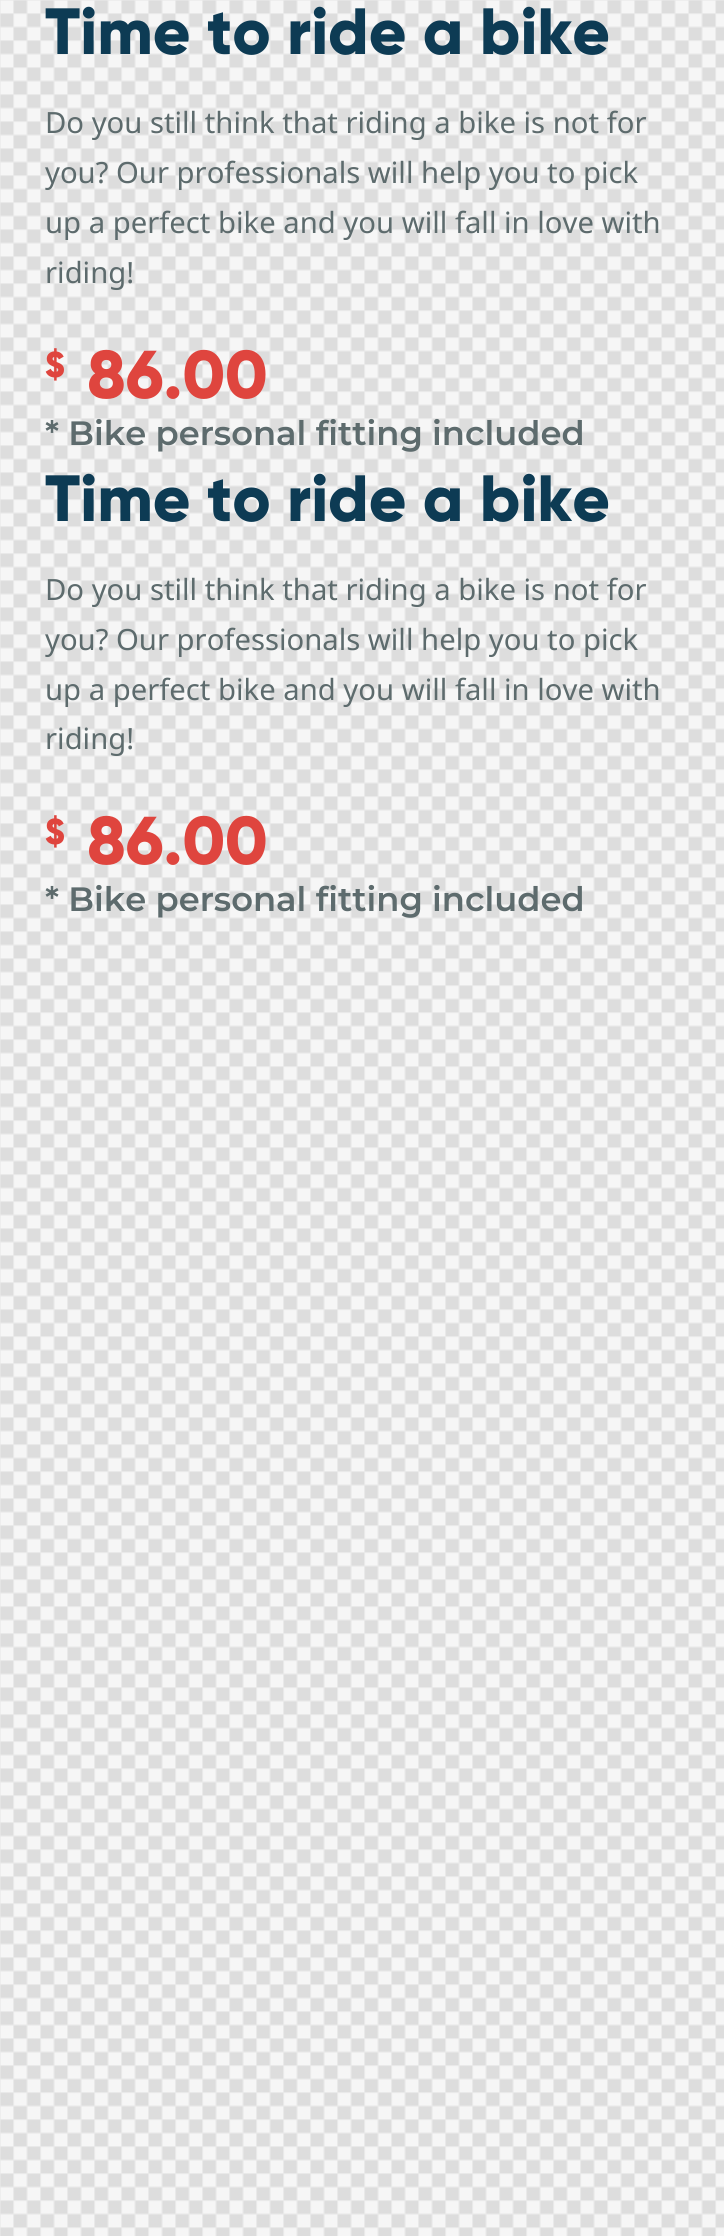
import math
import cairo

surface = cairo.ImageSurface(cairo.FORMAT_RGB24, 724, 2236)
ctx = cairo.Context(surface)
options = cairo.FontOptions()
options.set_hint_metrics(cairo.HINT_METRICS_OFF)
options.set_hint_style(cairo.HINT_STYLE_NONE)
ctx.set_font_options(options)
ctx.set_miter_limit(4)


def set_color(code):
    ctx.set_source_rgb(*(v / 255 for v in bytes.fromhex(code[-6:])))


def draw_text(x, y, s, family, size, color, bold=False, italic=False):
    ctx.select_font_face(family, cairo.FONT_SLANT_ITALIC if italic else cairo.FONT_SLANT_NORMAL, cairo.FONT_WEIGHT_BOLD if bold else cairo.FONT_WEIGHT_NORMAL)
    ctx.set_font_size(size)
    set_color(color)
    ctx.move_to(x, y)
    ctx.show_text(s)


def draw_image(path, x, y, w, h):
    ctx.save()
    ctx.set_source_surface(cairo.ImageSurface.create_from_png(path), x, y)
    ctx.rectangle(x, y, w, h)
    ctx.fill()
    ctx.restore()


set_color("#ffffff")
ctx.paint()
draw_image("assets/img1.png", 0, 0, 724, 2236)
draw_text(45, 54, "Time to ride a bike", "Gilroy ExtraBold", 65.25, "#0d3b54")
draw_text(45, 133, "Do you still think that riding a bike is not for", "Noto Sans", 29.25, "#5d6b6d")
draw_text(45, 183, "you? Our professionals will help you to pick", "Noto Sans", 29.25, "#5d6b6d")
draw_text(45, 233, "up a perfect bike and you will fall in love with", "Noto Sans", 29.25, "#5d6b6d")
draw_text(45, 283, "riding!", "Noto Sans", 29.25, "#5d6b6d")
draw_text(45, 377, "$", "Gilroy ExtraBold", 36, "#df453e")
draw_text(87, 398, "86.00", "Gilroy ExtraBold", 67.5, "#df453e")
draw_text(45, 445, "* Bike personal fitting included", "Montserrat SemiBold", 33.75, "#5d6b6d")
draw_text(45, 521, "Time to ride a bike", "Gilroy ExtraBold", 65.25, "#0d3b54")
draw_text(45, 600, "Do you still think that riding a bike is not for", "Noto Sans", 29.25, "#5d6b6d")
draw_text(45, 650, "you? Our professionals will help you to pick", "Noto Sans", 29.25, "#5d6b6d")
draw_text(45, 700, "up a perfect bike and you will fall in love with", "Noto Sans", 29.25, "#5d6b6d")
draw_text(45, 749, "riding!", "Noto Sans", 29.25, "#5d6b6d")
draw_text(45, 844, "$", "Gilroy ExtraBold", 36, "#df453e")
draw_text(87, 864, "86.00", "Gilroy ExtraBold", 67.5, "#df453e")
draw_text(45, 911, "* Bike personal fitting included", "Montserrat SemiBold", 33.75, "#5d6b6d")
surface.write_to_png("output.png")
